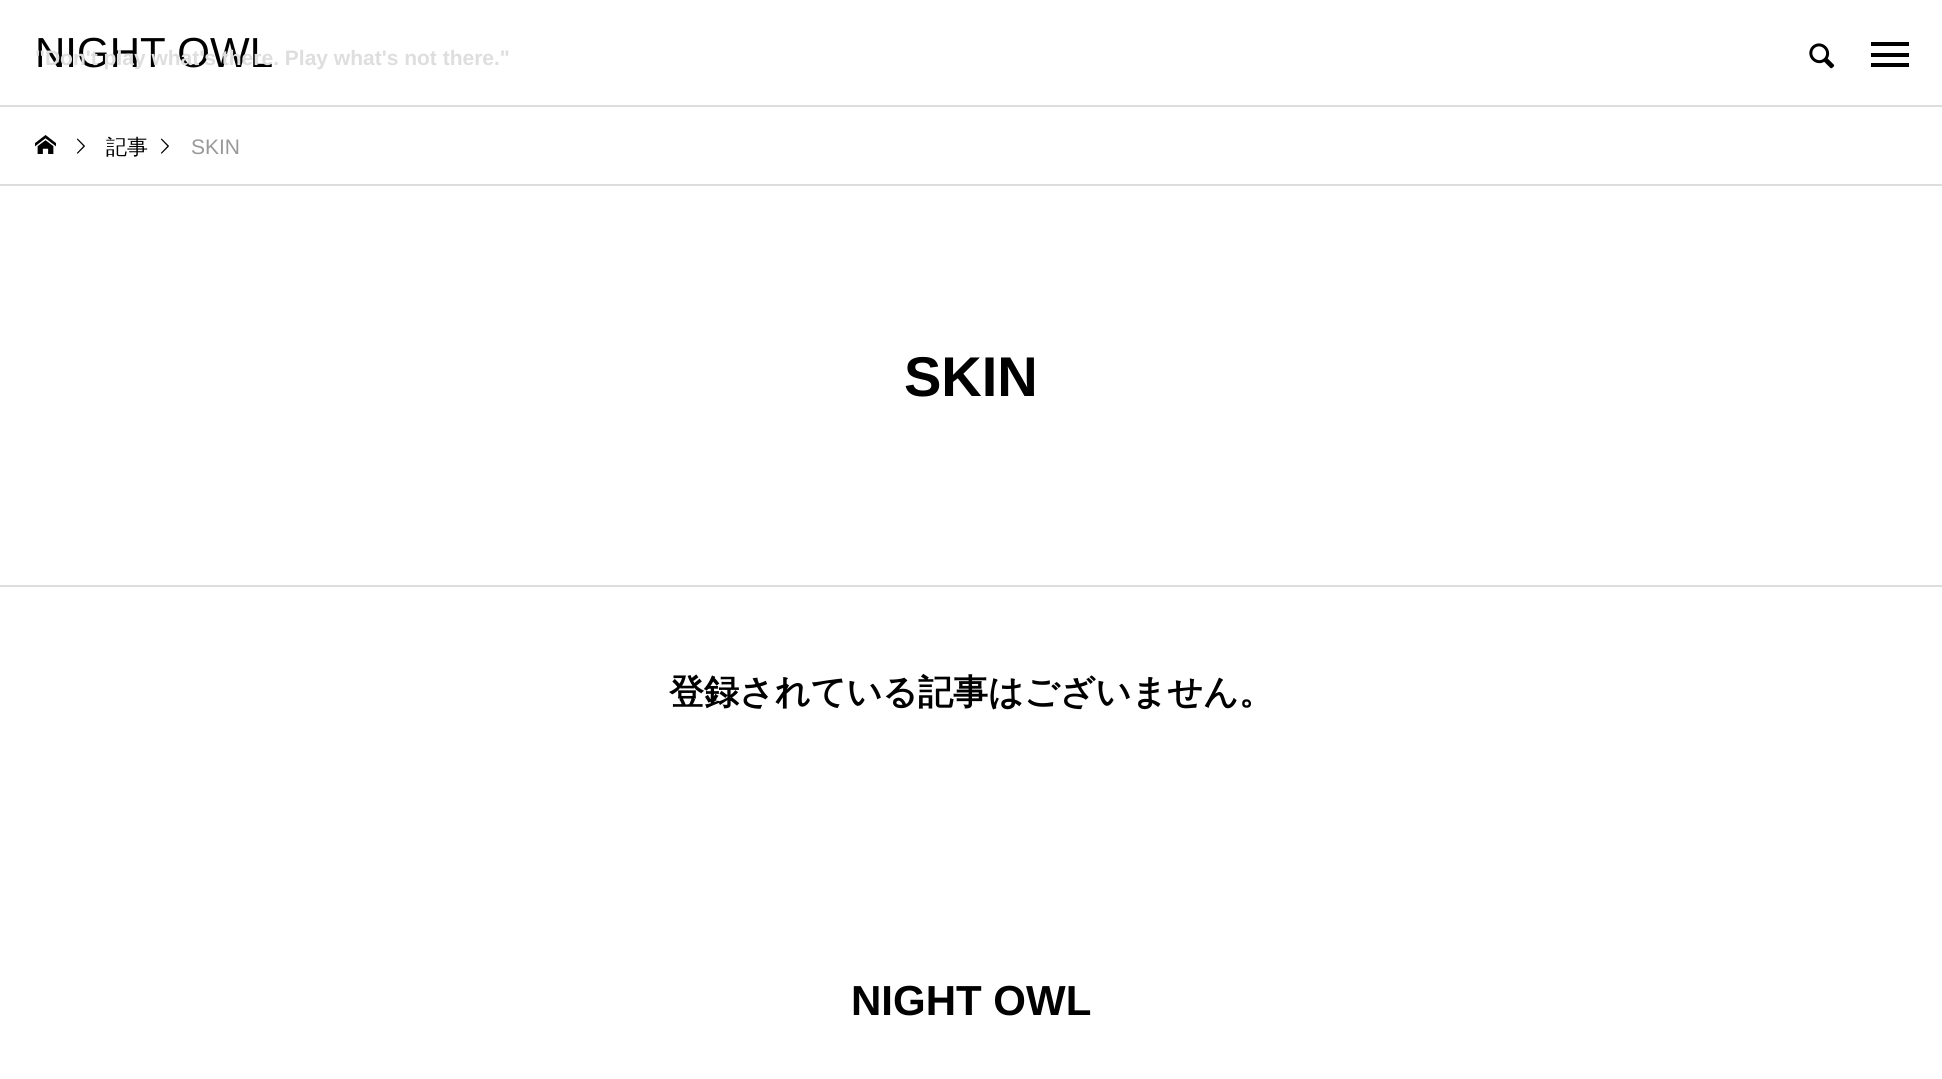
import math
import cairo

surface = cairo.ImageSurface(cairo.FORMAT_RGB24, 1942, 1079)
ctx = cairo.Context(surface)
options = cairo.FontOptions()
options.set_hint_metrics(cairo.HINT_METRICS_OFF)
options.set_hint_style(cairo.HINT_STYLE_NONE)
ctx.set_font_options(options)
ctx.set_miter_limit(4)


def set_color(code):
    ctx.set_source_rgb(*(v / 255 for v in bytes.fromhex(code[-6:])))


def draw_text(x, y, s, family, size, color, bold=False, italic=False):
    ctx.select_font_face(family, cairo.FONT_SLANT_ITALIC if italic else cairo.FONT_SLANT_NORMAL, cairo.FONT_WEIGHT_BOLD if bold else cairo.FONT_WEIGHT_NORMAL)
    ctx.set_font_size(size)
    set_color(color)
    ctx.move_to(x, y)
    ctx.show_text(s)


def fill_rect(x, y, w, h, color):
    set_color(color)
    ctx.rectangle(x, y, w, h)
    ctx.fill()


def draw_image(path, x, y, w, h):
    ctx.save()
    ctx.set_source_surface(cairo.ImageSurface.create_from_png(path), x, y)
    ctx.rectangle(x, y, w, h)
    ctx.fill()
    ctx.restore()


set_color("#ffffff")
ctx.paint()
draw_text(35, 67, "NIGHT OWL", "Liberation Sans", 42, "#000000")
draw_image("assets/img1.png", 1809, 43, 26, 26)
fill_rect(1871, 42, 38, 4, "#000000")
fill_rect(1871, 53, 38, 4, "#000000")
fill_rect(1871, 63, 38, 4, "#000000")
draw_text(35, 65, "\"Don't play what's there. Play what's not there.\"", "Liberation Sans", 21, "#dedede", bold=True)
fill_rect(0, 105, 1942, 2, "#dddddd")
draw_image("assets/img2.png", 35, 135, 21, 19)
draw_image("assets/img3.png", 77, 138, 8, 16)
draw_text(106, 154, "記事", "WenQuanYi Zen Hei Medium", 21, "#000000")
draw_image("assets/img3.png", 161, 138, 8, 16)
draw_text(191, 154, "SKIN", "Liberation Sans", 21, "#999999")
fill_rect(0, 184, 1942, 2, "#dddddd")
fill_rect(0, 585, 1942, 2, "#dddddd")
draw_text(904, 396, "SKIN", "Liberation Sans", 56, "#000000", bold=True)
draw_text(669, 704, "登録されている記事はございません。", "WenQuanYi Zen Hei", 35, "#000000", bold=True)
draw_text(851, 1015, "NIGHT OWL", "Liberation Sans", 42, "#000000", bold=True)
surface.write_to_png("output.png")
